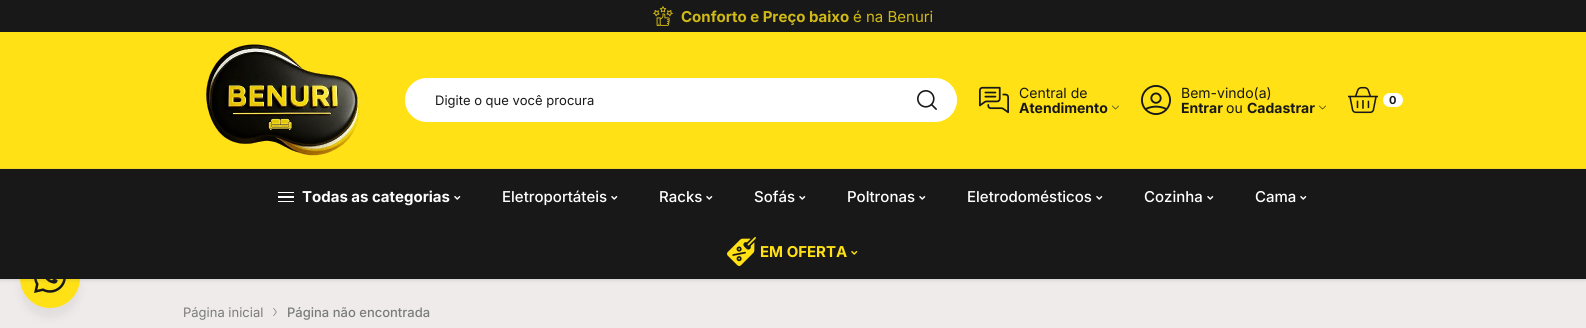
import math
import cairo

surface = cairo.ImageSurface(cairo.FORMAT_RGB24, 1586, 328)
ctx = cairo.Context(surface)
options = cairo.FontOptions()
options.set_hint_metrics(cairo.HINT_METRICS_OFF)
options.set_hint_style(cairo.HINT_STYLE_NONE)
ctx.set_font_options(options)
ctx.set_miter_limit(4)


def set_color(code):
    ctx.set_source_rgb(*(v / 255 for v in bytes.fromhex(code[-6:])))


def draw_text(x, y, s, family, size, color, bold=False, italic=False):
    ctx.select_font_face(family, cairo.FONT_SLANT_ITALIC if italic else cairo.FONT_SLANT_NORMAL, cairo.FONT_WEIGHT_BOLD if bold else cairo.FONT_WEIGHT_NORMAL)
    ctx.set_font_size(size)
    set_color(color)
    ctx.move_to(x, y)
    ctx.show_text(s)


def fill_rect(x, y, w, h, color):
    set_color(color)
    ctx.rectangle(x, y, w, h)
    ctx.fill()


def rounded_rect(x, y, w, h, r):
    ctx.new_sub_path()
    for i, (u, v) in enumerate([(x + w - r, y + h - r), (x + r, y + h - r), (x + r, y + r), (x + w - r, y + r)]):
        ctx.arc(u, v, r, i * math.pi / 2, (i + 1) * math.pi / 2)
    ctx.close_path()


def draw_shadow(x, y, w, h, r, blur, alpha):
    ctx.push_group_with_content(cairo.CONTENT_ALPHA)
    ctx.set_operator(cairo.OPERATOR_SOURCE)
    for i in range(15, -16, -2):
        e = blur * i / 6
        if min(w, h) + 2 * e > 0:
            ctx.set_source_rgba(0, 0, 0, alpha * math.erfc((i - 1) / 8.5) / 2)
            rounded_rect(x - e, y - e, w + 2 * e, h + 2 * e, max(0, min(r + e + blur * .6, min(w, h) / 2 + e)))
            ctx.fill()
    ctx.mask(ctx.pop_group())


def draw_image(path, x, y, w, h):
    ctx.save()
    ctx.set_source_surface(cairo.ImageSurface.create_from_png(path), x, y)
    ctx.rectangle(x, y, w, h)
    ctx.fill()
    ctx.restore()


set_color("#efebeb")
ctx.paint()
set_color("#676767")
draw_shadow(20, 258, 60, 60, 30, 4, 0.1)
set_color("#ffe115")
ctx.arc(50, 278, 30, 0, 2 * math.pi)
ctx.fill()
draw_image("assets/img1.png", 34, 279, 32, 14)
fill_rect(0, 0, 1586, 32, "#181818")
draw_image("assets/img2.png", 653, 6, 20, 20)
draw_text(681, 22, "Conforto e Preço baixo", "Inter", 15, "#d1b916", bold=True)
draw_text(853, 22, "é na Benuri", "Inter", 15, "#d1b916")
set_color("#525252")
draw_shadow(0, 170, 1586, 110, 0, 2, 0.2)
fill_rect(0, 32, 1586, 136, "#ffe115")
fill_rect(0, 168, 1586, 1, "#f1d625")
draw_image("assets/img3.png", 206, 44, 154, 112)
set_color("#ffffff")
rounded_rect(405, 78, 552, 44, 22)
ctx.fill()
draw_text(435, 105, "Digite o que você procura", "Inter", 13, "#181818")
draw_image("assets/img4.png", 917, 90, 20, 20)
draw_image("assets/img5.png", 979, 86, 30, 28)
draw_text(1019, 98, "Central de", "Inter", 14, "#181818")
draw_text(1019, 113, "Atendimento", "Inter", 14, "#181818", bold=True)
draw_image("assets/img6.png", 1112, 105, 7, 5)
draw_image("assets/img7.png", 1141, 85, 30, 30)
draw_text(1181, 98, "Bem-vindo(a)", "Inter", 14, "#181818")
draw_text(1181, 113, "Entrar", "Inter", 14, "#181818", bold=True)
draw_text(1226, 113, "ou", "Inter", 14, "#181818")
draw_text(1247, 113, "Cadastrar", "Inter", 14, "#181818", bold=True)
draw_image("assets/img6.png", 1319, 105, 7, 5)
draw_image("assets/img8.png", 1348, 86, 30, 28)
set_color("#ffffff")
rounded_rect(1383, 93, 20, 14, 7)
ctx.fill()
draw_text(1389, 104, "0", "Inter", 11, "#181818", bold=True)
fill_rect(0, 169, 1586, 110, "#181818")
fill_rect(278, 201, 16, 1, "#ffffff")
fill_rect(278, 196, 16, 2, "#ffffff")
fill_rect(278, 192, 16, 1, "#ffffff")
draw_text(302, 202, "Todas as categorias", "Inter", 15, "#ffffff", bold=True)
draw_image("assets/img9.png", 454, 196, 7, 4)
draw_text(502, 202, "Eletroportáteis", "Inter Medium", 15, "#ffffff")
draw_image("assets/img9.png", 611, 196, 7, 4)
draw_text(659, 202, "Racks", "Inter Medium", 15, "#ffffff")
draw_image("assets/img9.png", 706, 196, 7, 4)
draw_text(754, 202, "Sofás", "Inter Medium", 15, "#ffffff")
draw_image("assets/img9.png", 799, 196, 7, 4)
draw_text(847, 202, "Poltronas", "Inter Medium", 15, "#ffffff")
draw_image("assets/img9.png", 919, 196, 7, 4)
draw_text(967, 202, "Eletrodomésticos", "Inter Medium", 15, "#ffffff")
draw_image("assets/img9.png", 1096, 196, 7, 4)
draw_text(1144, 202, "Cozinha", "Inter Medium", 15, "#ffffff")
draw_image("assets/img9.png", 1207, 196, 7, 4)
draw_text(1255, 202, "Cama", "Inter Medium", 15, "#ffffff")
draw_image("assets/img9.png", 1300, 196, 7, 4)
draw_image("assets/img10.png", 727, 237, 29, 29)
draw_text(760, 257, "EM OFERTA", "Inter", 15, "#ffe115", bold=True)
draw_image("assets/img11.png", 851, 251, 7, 4)
draw_text(183, 317, "Página inicial", "Inter", 13, "#7b7b7b")
draw_image("assets/img12.png", 273, 308, 4, 8)
draw_text(287, 317, "Página não encontrada", "Inter Medium", 13, "#7b7b7b")
surface.write_to_png("output.png")
